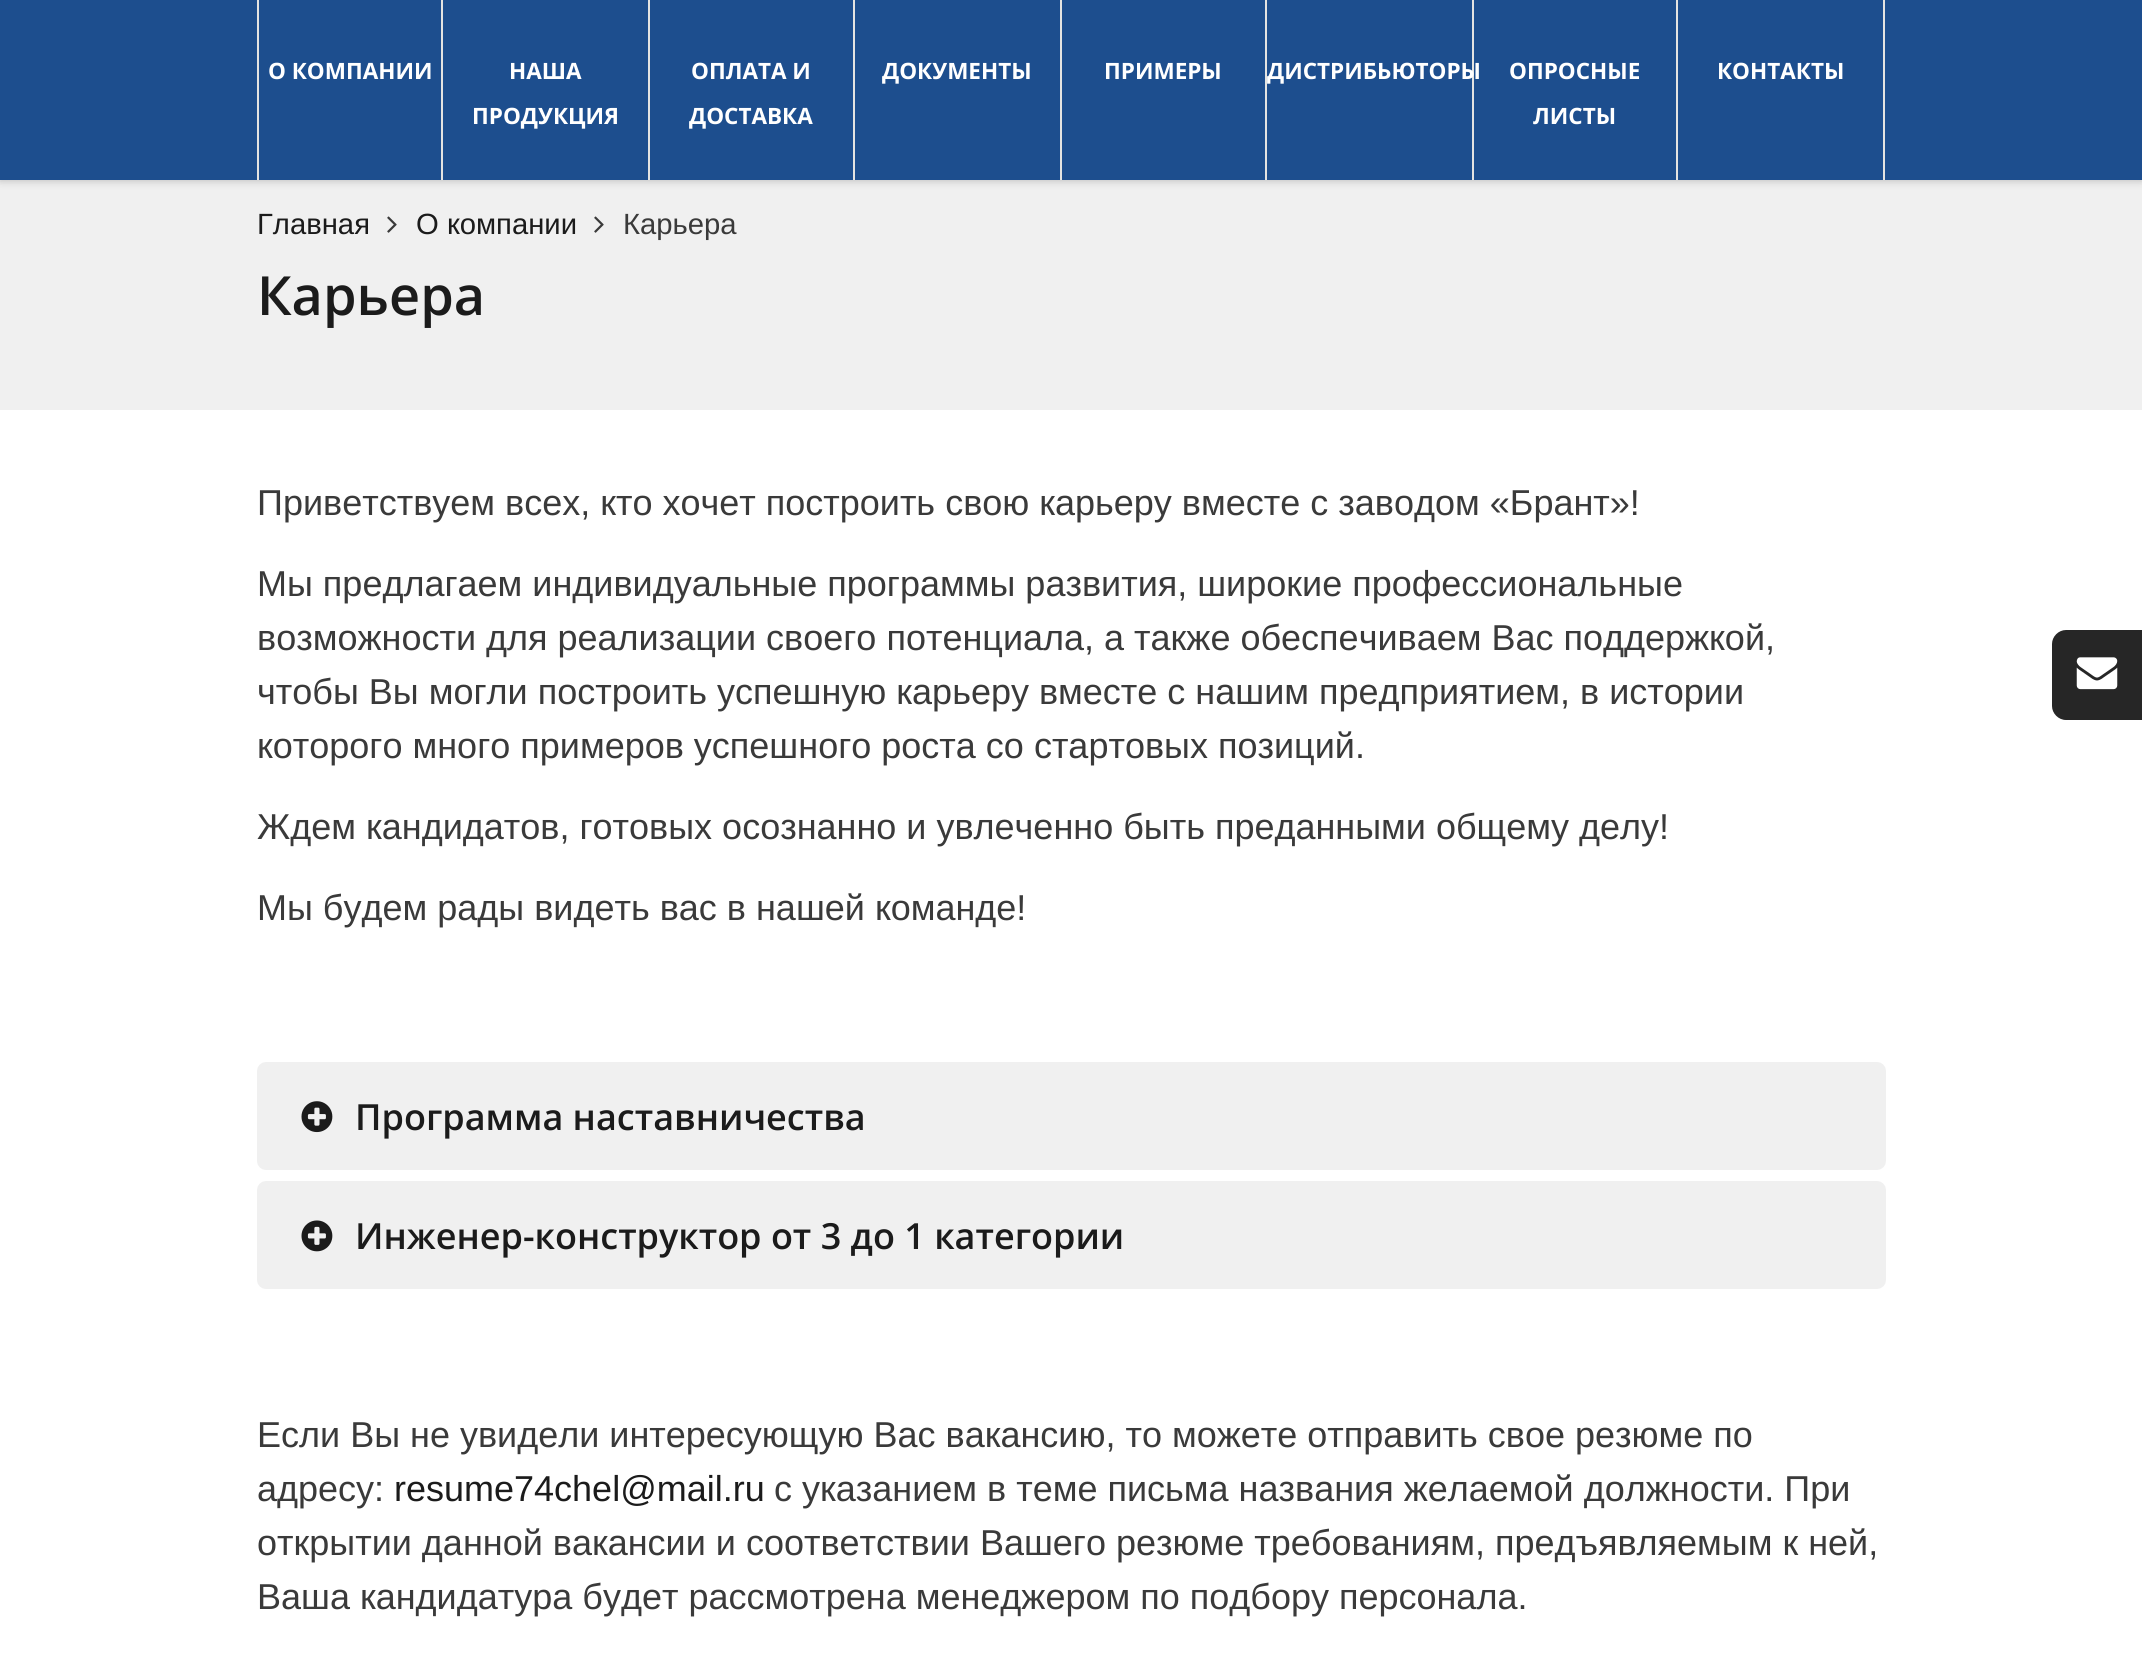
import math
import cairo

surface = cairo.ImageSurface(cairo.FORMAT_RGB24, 2142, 1664)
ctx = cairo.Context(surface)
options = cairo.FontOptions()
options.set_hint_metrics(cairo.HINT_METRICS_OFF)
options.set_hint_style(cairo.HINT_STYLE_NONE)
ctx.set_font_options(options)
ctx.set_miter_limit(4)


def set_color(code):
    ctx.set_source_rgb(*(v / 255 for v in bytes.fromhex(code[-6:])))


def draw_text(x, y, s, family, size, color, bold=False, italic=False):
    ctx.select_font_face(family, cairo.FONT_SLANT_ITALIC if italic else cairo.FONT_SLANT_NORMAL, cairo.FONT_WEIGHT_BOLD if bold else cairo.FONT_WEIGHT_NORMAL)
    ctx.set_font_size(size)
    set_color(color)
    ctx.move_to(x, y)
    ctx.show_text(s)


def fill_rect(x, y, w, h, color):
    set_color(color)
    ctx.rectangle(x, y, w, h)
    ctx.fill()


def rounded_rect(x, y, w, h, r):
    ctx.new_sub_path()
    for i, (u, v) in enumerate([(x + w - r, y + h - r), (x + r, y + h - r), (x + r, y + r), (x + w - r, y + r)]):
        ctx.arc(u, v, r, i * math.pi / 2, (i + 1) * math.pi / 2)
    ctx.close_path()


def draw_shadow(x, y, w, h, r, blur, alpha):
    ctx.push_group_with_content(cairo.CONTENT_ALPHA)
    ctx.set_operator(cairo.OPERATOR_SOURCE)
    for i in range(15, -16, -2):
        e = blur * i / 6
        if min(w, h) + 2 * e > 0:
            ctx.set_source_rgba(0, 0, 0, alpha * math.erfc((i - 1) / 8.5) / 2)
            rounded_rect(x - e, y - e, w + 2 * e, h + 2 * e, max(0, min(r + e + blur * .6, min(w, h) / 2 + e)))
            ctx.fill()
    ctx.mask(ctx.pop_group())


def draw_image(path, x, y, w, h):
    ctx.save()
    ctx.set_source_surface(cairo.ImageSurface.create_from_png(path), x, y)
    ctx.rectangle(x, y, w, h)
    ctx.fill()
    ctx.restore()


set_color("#ffffff")
ctx.paint()
fill_rect(0, 180, 2142, 230, "#f0f0f0")
set_color("#000000")
draw_shadow(0, 0, 2142, 180, 0, 4.5, 0.25)
fill_rect(0, 0, 2142, 180, "#1d4e8e")
fill_rect(441, 0, 2, 180, "#e4e4e2")
fill_rect(257, 0, 2, 180, "#e4e4e2")
draw_text(268, 79, "О КОМПАНИИ", "Open Sans", 22.5, "#ffffff", bold=True)
fill_rect(648, 0, 2, 180, "#e4e4e2")
draw_text(509, 79, "НАША", "Open Sans", 22.5, "#ffffff", bold=True)
draw_text(472, 124, "ПРОДУКЦИЯ", "Open Sans", 22.5, "#ffffff", bold=True)
fill_rect(853, 0, 2, 180, "#e4e4e2")
draw_text(691, 79, "ОПЛАТА И", "Open Sans", 22.5, "#ffffff", bold=True)
draw_text(689, 124, "ДОСТАВКА", "Open Sans", 22.5, "#ffffff", bold=True)
fill_rect(1060, 0, 2, 180, "#e4e4e2")
draw_text(882, 79, "ДОКУМЕНТЫ", "Open Sans", 22.5, "#ffffff", bold=True)
fill_rect(1265, 0, 2, 180, "#e4e4e2")
draw_text(1104, 79, "ПРИМЕРЫ", "Open Sans", 22.5, "#ffffff", bold=True)
fill_rect(1472, 0, 2, 180, "#e4e4e2")
draw_text(1267, 79, "ДИСТРИБЬЮТОРЫ", "Open Sans", 22.5, "#ffffff", bold=True)
fill_rect(1676, 0, 2, 180, "#e4e4e2")
draw_text(1509, 79, "ОПРОСНЫЕ", "Open Sans", 22.5, "#ffffff", bold=True)
draw_text(1533, 124, "ЛИСТЫ", "Open Sans", 22.5, "#ffffff", bold=True)
fill_rect(1883, 0, 2, 180, "#e4e4e2")
draw_text(1717, 79, "КОНТАКТЫ", "Open Sans", 22.5, "#ffffff", bold=True)
draw_text(257, 234, "Главная", "Liberation Sans", 29.25, "#1b1b1b")
draw_image("assets/img1.png", 387, 216, 10, 17)
draw_text(416, 234, "О компании", "Liberation Sans", 29.25, "#1b1b1b")
draw_image("assets/img1.png", 594, 216, 10, 17)
draw_text(623, 234, "Карьера", "Liberation Sans", 29.25, "#3a3a3a")
draw_text(257, 315, "Карьера", "Open Sans SemiBold", 54, "#1b1b1b")
draw_text(257, 515, "Приветствуем всех, кто хочет построить свою карьеру вместе с заводом «Брант»!", "Liberation Sans", 36, "#3a3a3a")
draw_text(257, 596, "Мы предлагаем индивидуальные программы развития, широкие профессиональные", "Liberation Sans", 36, "#3a3a3a")
draw_text(257, 650, "возможности для реализации своего потенциала, а также обеспечиваем Вас поддержкой,", "Liberation Sans", 36, "#3a3a3a")
draw_text(257, 704, "чтобы Вы могли построить успешную карьеру вместе с нашим предприятием, в истории", "Liberation Sans", 36, "#3a3a3a")
draw_text(257, 758, "которого много примеров успешного роста со стартовых позиций.", "Liberation Sans", 36, "#3a3a3a")
draw_text(257, 839, "Ждем кандидатов, готовых осознанно и увлеченно быть преданными общему делу!", "Liberation Sans", 36, "#3a3a3a")
draw_text(257, 920, "Мы будем рады видеть вас в нашей команде!", "Liberation Sans", 36, "#3a3a3a")
set_color("#f0f0f0")
rounded_rect(262.5, 1067.5, 1618, 97, 3.5)
ctx.fill_preserve()
ctx.set_line_width(11)
ctx.stroke()
draw_image("assets/img2.png", 301, 1101, 32, 32)
draw_text(355, 1130, "Программа наставничества", "Open Sans SemiBold", 36, "#1b1b1b")
set_color("#f0f0f0")
rounded_rect(262.5, 1186.5, 1618, 97, 3.5)
ctx.fill_preserve()
ctx.stroke()
draw_image("assets/img3.png", 301, 1220, 32, 32)
draw_text(355, 1249, "Инженер-конструктор от 3 до 1 категории", "Open Sans SemiBold", 36, "#1b1b1b")
draw_text(257, 1447, "Если Вы не увидели интересующую Вас вакансию, то можете отправить свое резюме по", "Liberation Sans", 36, "#3a3a3a")
draw_text(257, 1501, "адресу:", "Liberation Sans", 36, "#3a3a3a")
draw_text(394, 1501, "resume74chel@mail.ru", "Liberation Sans", 36, "#1b1b1b")
draw_text(774, 1501, "с указанием в теме письма названия желаемой должности. При", "Liberation Sans", 36, "#3a3a3a")
draw_text(257, 1555, "открытии данной вакансии и соответствии Вашего резюме требованиям, предъявляемым к ней,", "Liberation Sans", 36, "#3a3a3a")
draw_text(257, 1609, "Ваша кандидатура будет рассмотрена менеджером по подбору персонала.", "Liberation Sans", 36, "#3a3a3a")
set_color("#262626")
ctx.new_path()
ctx.move_to(2066, 630)
ctx.line_to(2142, 630)
ctx.line_to(2142, 720)
ctx.line_to(2066, 720)
ctx.curve_to(2058.5, 720, 2052, 713.5, 2052, 706)
ctx.line_to(2052, 644)
ctx.curve_to(2052, 636.5, 2058.5, 630, 2066, 630)
ctx.close_path()
ctx.fill()
draw_image("assets/img4.png", 2076, 657, 42, 33)
surface.write_to_png("output.png")
